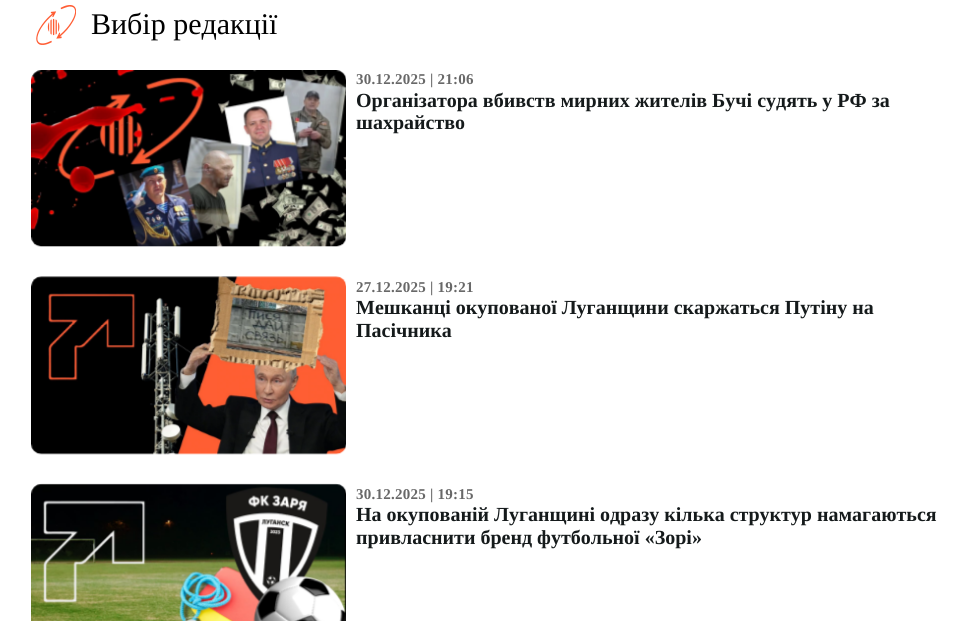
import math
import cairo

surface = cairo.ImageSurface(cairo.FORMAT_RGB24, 962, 621)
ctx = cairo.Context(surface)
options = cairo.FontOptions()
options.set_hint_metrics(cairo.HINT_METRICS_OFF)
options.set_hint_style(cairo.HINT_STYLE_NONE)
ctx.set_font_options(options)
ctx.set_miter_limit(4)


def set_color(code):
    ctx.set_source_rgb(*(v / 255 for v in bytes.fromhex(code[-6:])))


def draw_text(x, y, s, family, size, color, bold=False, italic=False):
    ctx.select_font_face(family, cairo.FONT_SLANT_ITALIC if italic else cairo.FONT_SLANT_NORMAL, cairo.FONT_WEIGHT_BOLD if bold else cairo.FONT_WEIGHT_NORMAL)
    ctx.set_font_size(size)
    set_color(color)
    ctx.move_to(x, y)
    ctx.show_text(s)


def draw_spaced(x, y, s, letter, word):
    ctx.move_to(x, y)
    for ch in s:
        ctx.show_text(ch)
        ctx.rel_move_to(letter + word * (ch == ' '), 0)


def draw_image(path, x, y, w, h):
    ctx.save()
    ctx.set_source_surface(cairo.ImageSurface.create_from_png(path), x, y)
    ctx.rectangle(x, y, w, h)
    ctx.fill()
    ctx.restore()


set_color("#ffffff")
ctx.paint()
draw_image("assets/img1.png", 36, 5, 40, 40)
draw_text(91, 34, "Вибір редакції", "Liberation Serif", 30, "#000000")
draw_image("assets/img2.png", 31, 70, 315, 177)
ctx.select_font_face("Liberation Serif", cairo.FONT_SLANT_NORMAL, cairo.FONT_WEIGHT_BOLD)
ctx.set_font_size(15)
set_color("#686868")
draw_spaced(356, 84, "30.12.2025 | 21:06", 0.25, 0)
draw_text(356, 107, "Організатора вбивств мирних жителів Бучі судять у РФ за", "Liberation Serif", 20, "#151a1b", bold=True)
draw_text(356, 129, "шахрайство", "Liberation Serif", 20, "#151a1b", bold=True)
draw_image("assets/img3.png", 31, 276, 315, 179)
ctx.set_font_size(15)
set_color("#686868")
draw_spaced(356, 292, "27.12.2025 | 19:21", 0.25, 0)
draw_text(356, 314, "Мешканці окупованої Луганщини скаржаться Путіну на", "Liberation Serif", 20, "#151a1b", bold=True)
draw_text(356, 337, "Пасічника", "Liberation Serif", 20, "#151a1b", bold=True)
draw_image("assets/img4.png", 31, 483, 315, 138)
ctx.set_font_size(15)
set_color("#686868")
draw_spaced(356, 499, "30.12.2025 | 19:15", 0.25, 0)
draw_text(356, 521, "На окупованій Луганщині одразу кілька структур намагаються", "Liberation Serif", 20, "#151a1b", bold=True)
draw_text(356, 544, "привласнити бренд футбольної «Зорі»", "Liberation Serif", 20, "#151a1b", bold=True)
surface.write_to_png("output.png")
